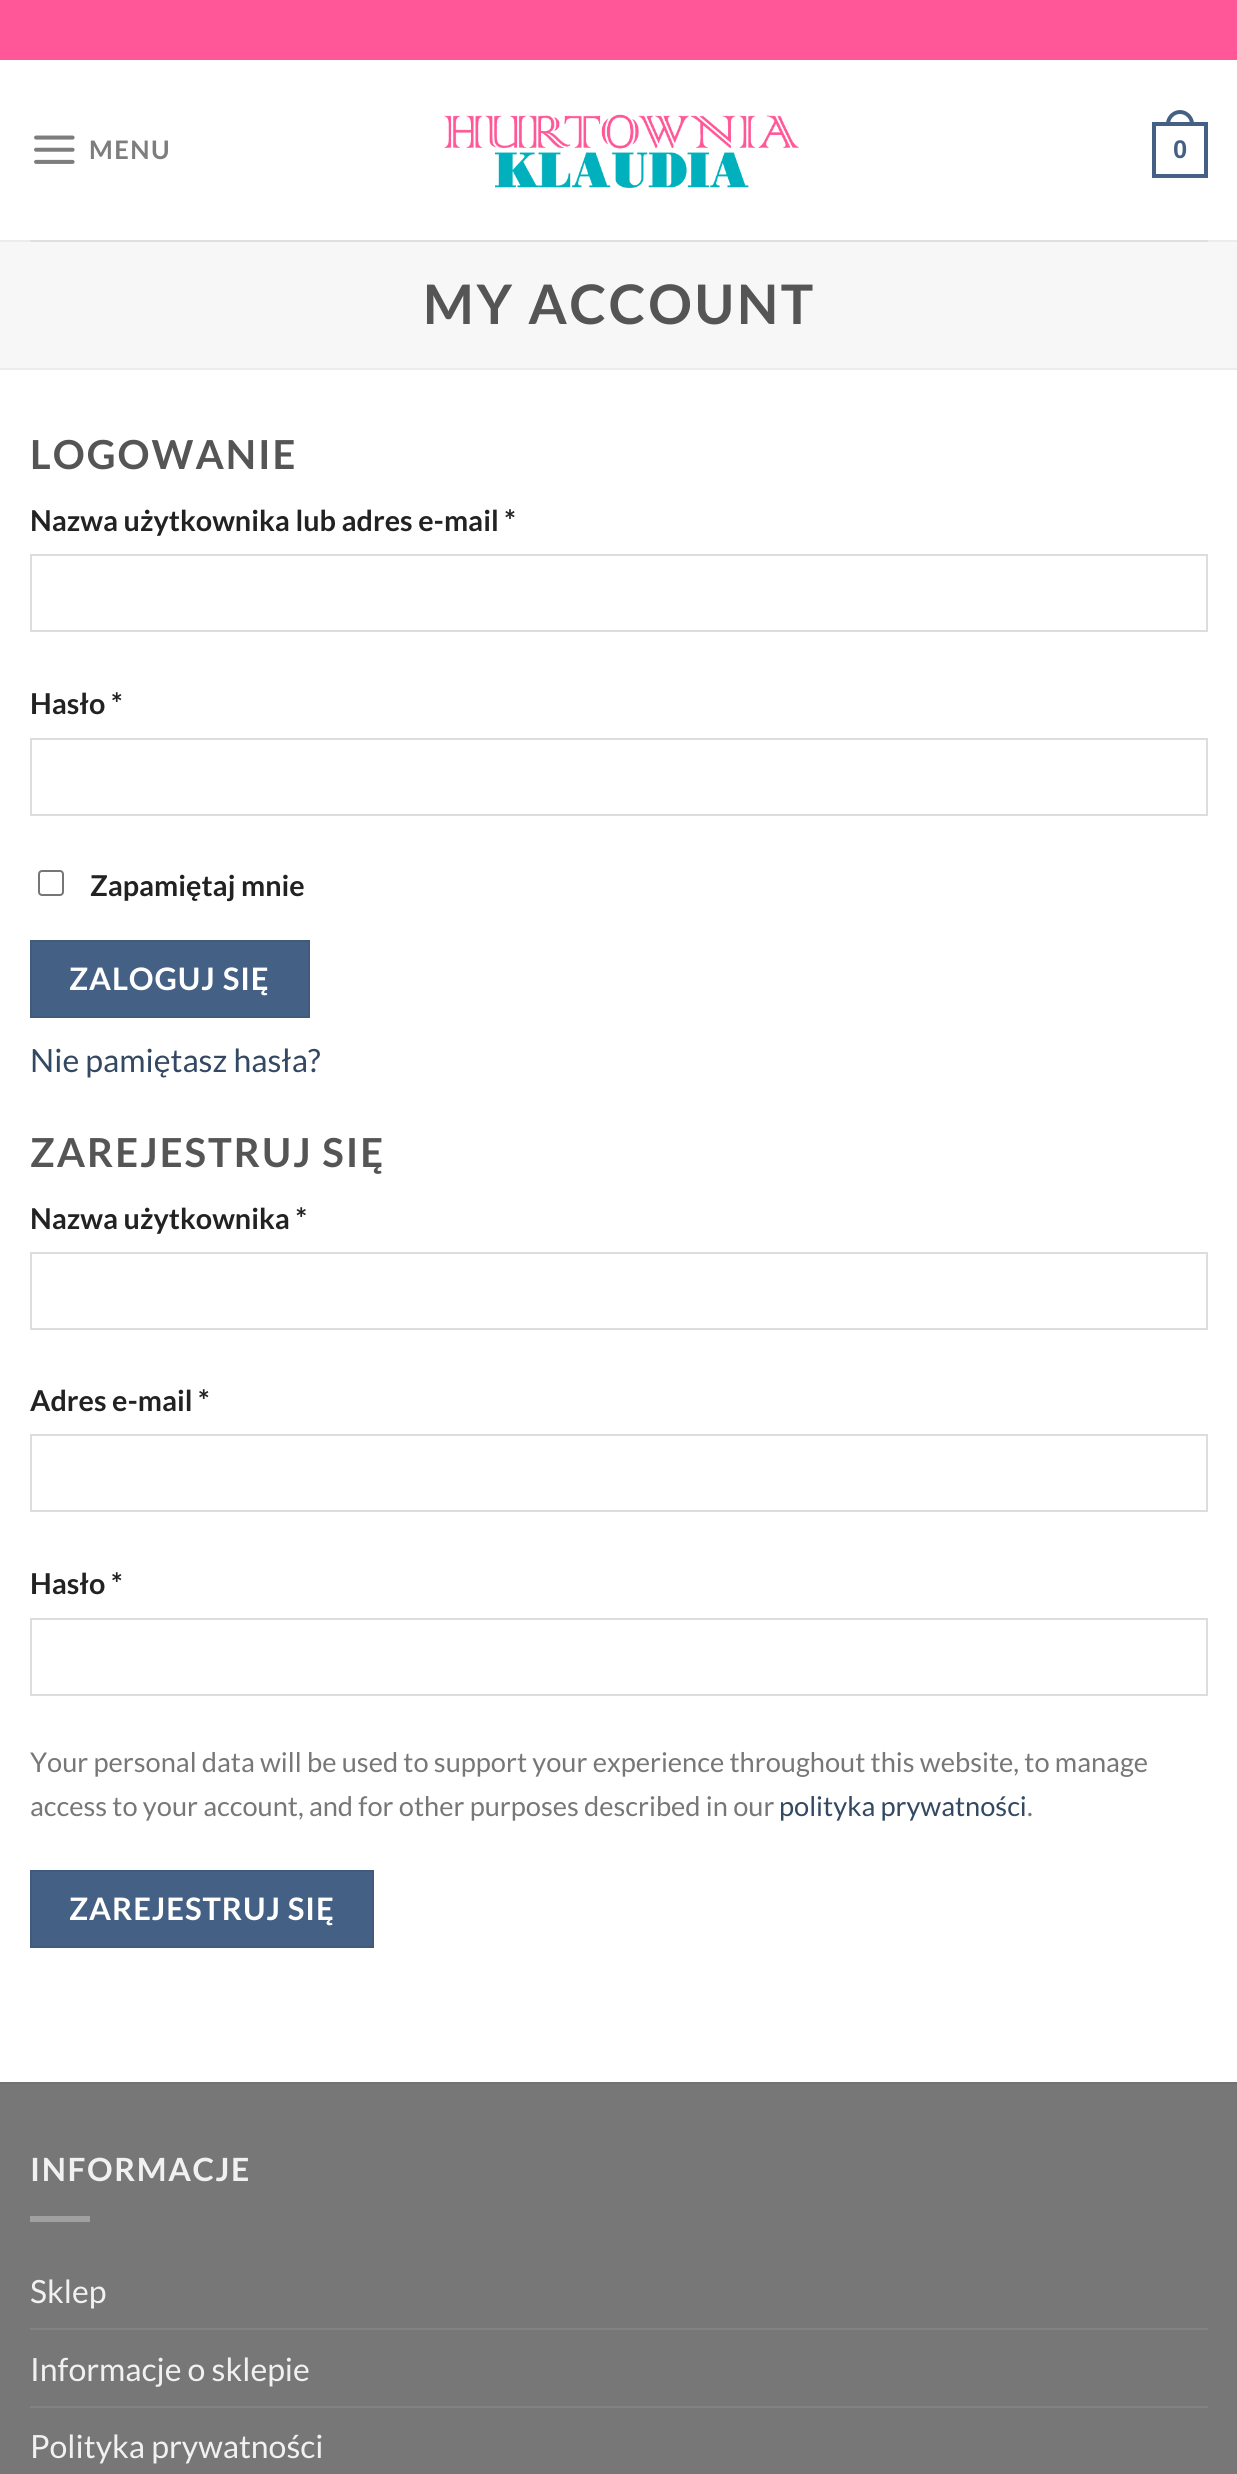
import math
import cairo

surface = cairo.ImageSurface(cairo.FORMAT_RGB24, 1237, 2474)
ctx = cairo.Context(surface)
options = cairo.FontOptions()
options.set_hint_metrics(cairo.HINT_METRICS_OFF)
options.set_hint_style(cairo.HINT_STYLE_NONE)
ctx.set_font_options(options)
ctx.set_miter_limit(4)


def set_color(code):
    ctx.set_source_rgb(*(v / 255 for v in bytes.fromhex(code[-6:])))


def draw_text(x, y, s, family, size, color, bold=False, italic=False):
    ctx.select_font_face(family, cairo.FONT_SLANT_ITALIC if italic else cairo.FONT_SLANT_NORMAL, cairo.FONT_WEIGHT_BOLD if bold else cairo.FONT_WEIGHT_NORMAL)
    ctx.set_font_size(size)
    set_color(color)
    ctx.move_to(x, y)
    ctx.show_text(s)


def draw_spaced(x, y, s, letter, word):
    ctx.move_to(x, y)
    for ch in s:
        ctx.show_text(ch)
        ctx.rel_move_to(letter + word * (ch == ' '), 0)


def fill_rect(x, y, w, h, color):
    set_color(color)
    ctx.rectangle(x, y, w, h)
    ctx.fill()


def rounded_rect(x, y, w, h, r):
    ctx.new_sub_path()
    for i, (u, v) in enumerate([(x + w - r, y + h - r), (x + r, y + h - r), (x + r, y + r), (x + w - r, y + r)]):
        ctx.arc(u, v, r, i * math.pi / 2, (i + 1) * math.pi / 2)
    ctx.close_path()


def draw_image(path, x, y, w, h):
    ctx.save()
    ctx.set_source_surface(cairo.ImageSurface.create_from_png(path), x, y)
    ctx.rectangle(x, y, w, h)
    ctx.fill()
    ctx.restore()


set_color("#ffffff")
ctx.paint()
fill_rect(0, 0, 1237, 60, "#ff5797")
draw_image("assets/img1.png", 34, 135, 41, 29)
ctx.select_font_face("Lato", cairo.FONT_SLANT_NORMAL, cairo.FONT_WEIGHT_BOLD)
ctx.set_font_size(25.5)
set_color("#7d7d7d")
draw_spaced(89, 159, "MENU", 1.5, 0)
draw_image("assets/img2.png", 444, 114, 355, 74)
ctx.rectangle(1154, 124, 52, 52)
set_color("#446084")
ctx.set_line_width(4)
ctx.stroke()
ctx.set_fill_rule(cairo.FILL_RULE_EVEN_ODD)
ctx.new_path()
ctx.move_to(1180, 110)
ctx.curve_to(1187.5, 110, 1194, 116.5, 1194, 124)
ctx.line_to(1194, 126)
ctx.line_to(1166, 126)
ctx.line_to(1166, 124)
ctx.curve_to(1166, 116.5, 1172.5, 110, 1180, 110)
ctx.close_path()
ctx.move_to(1180, 114)
ctx.curve_to(1185.5, 114, 1190, 118.5, 1190, 124)
ctx.line_to(1190, 126)
ctx.line_to(1170, 126)
ctx.line_to(1170, 124)
ctx.curve_to(1170, 118.5, 1174.5, 114, 1180, 114)
ctx.close_path()
ctx.fill()
draw_text(1173, 158, "0", "Liberation Sans", 25.5, "#446084", bold=True)
fill_rect(0, 240, 1237, 2, "#ececec")
fill_rect(30, 240, 1178, 2, "#e0e0e0")
fill_rect(0, 242, 1237, 126, "#f7f7f7")
fill_rect(0, 368, 1237, 2, "#ececec")
ctx.select_font_face("Lato", cairo.FONT_SLANT_NORMAL, cairo.FONT_WEIGHT_BOLD)
ctx.set_font_size(54.5)
set_color("#555555")
draw_spaced(423, 324, "MY ACCOUNT", 2.75, 0)
ctx.set_font_size(40)
draw_spaced(30, 469, "LOGOWANIE", 2, 0)
draw_text(30, 531, "Nazwa użytkownika lub adres e-mail *", "Lato", 28.75, "#222222", bold=True)
ctx.rectangle(31, 555, 1176, 76)
set_color("#dddddd")
ctx.set_line_width(2)
ctx.stroke()
draw_text(30, 714, "Hasło *", "Lato", 28.75, "#222222", bold=True)
ctx.rectangle(31, 739, 1176, 76)
set_color("#dddddd")
ctx.stroke()
rounded_rect(39, 871, 24, 24, 3)
set_color("#767676")
ctx.stroke()
draw_text(90, 896, "Zapamiętaj mnie", "Lato", 28.75, "#222222", bold=True)
set_color("#446084")
ctx.rectangle(31, 941, 278, 76)
ctx.fill_preserve()
set_color("#415b7d")
ctx.stroke()
ctx.set_font_size(31)
set_color("#ffffff")
draw_spaced(69, 990, "ZALOGUJ SIĘ", 0.9, 0)
draw_text(30, 1072, "Nie pamiętasz hasła?", "Lato", 32, "#334862")
ctx.select_font_face("Lato", cairo.FONT_SLANT_NORMAL, cairo.FONT_WEIGHT_BOLD)
ctx.set_font_size(40)
set_color("#555555")
draw_spaced(30, 1167, "ZAREJESTRUJ SIĘ", 2, 0)
draw_text(30, 1229, "Nazwa użytkownika *", "Lato", 28.75, "#222222", bold=True)
ctx.rectangle(31, 1253, 1176, 76)
set_color("#dddddd")
ctx.stroke()
draw_text(30, 1411, "Adres e-mail *", "Lato", 28.75, "#222222", bold=True)
ctx.rectangle(31, 1435, 1176, 76)
set_color("#dddddd")
ctx.stroke()
draw_text(30, 1594, "Hasło *", "Lato", 28.75, "#222222", bold=True)
ctx.rectangle(31, 1619, 1176, 76)
set_color("#dddddd")
ctx.stroke()
draw_text(30, 1772, "Your personal data will be used to support your experience throughout this website, to manage", "Lato", 27.2, "#777777")
draw_text(30, 1816, "access to your account, and for other purposes described in our", "Lato", 27.2, "#777777")
draw_text(779, 1816, "polityka prywatności", "Lato", 27.2, "#334862")
draw_text(1027, 1816, ".", "Lato", 27.2, "#777777")
set_color("#446084")
ctx.rectangle(31, 1871, 342, 76)
ctx.fill_preserve()
set_color("#415b7d")
ctx.stroke()
ctx.select_font_face("Lato", cairo.FONT_SLANT_NORMAL, cairo.FONT_WEIGHT_BOLD)
ctx.set_font_size(31)
set_color("#ffffff")
draw_spaced(69, 1920, "ZAREJESTRUJ SIĘ", 0.9, 0)
fill_rect(0, 2084, 1237, 390, "#777777")
fill_rect(0, 2082, 1237, 2, "#717171")
ctx.set_font_size(32)
set_color("#f1f1f1")
draw_spaced(30, 2181, "INFORMACJE", 1.6, 0)
fill_rect(30, 2216, 60, 6, "#a0a0a0")
draw_text(30, 2303, "Sklep", "Lato", 32, "#f1f1f1")
fill_rect(30, 2328, 1178, 2, "#828282")
draw_text(30, 2381, "Informacje o sklepie", "Lato", 32, "#f1f1f1")
fill_rect(30, 2406, 1178, 2, "#828282")
draw_text(30, 2458, "Polityka prywatności", "Lato", 32, "#f1f1f1")
surface.write_to_png("output.png")
